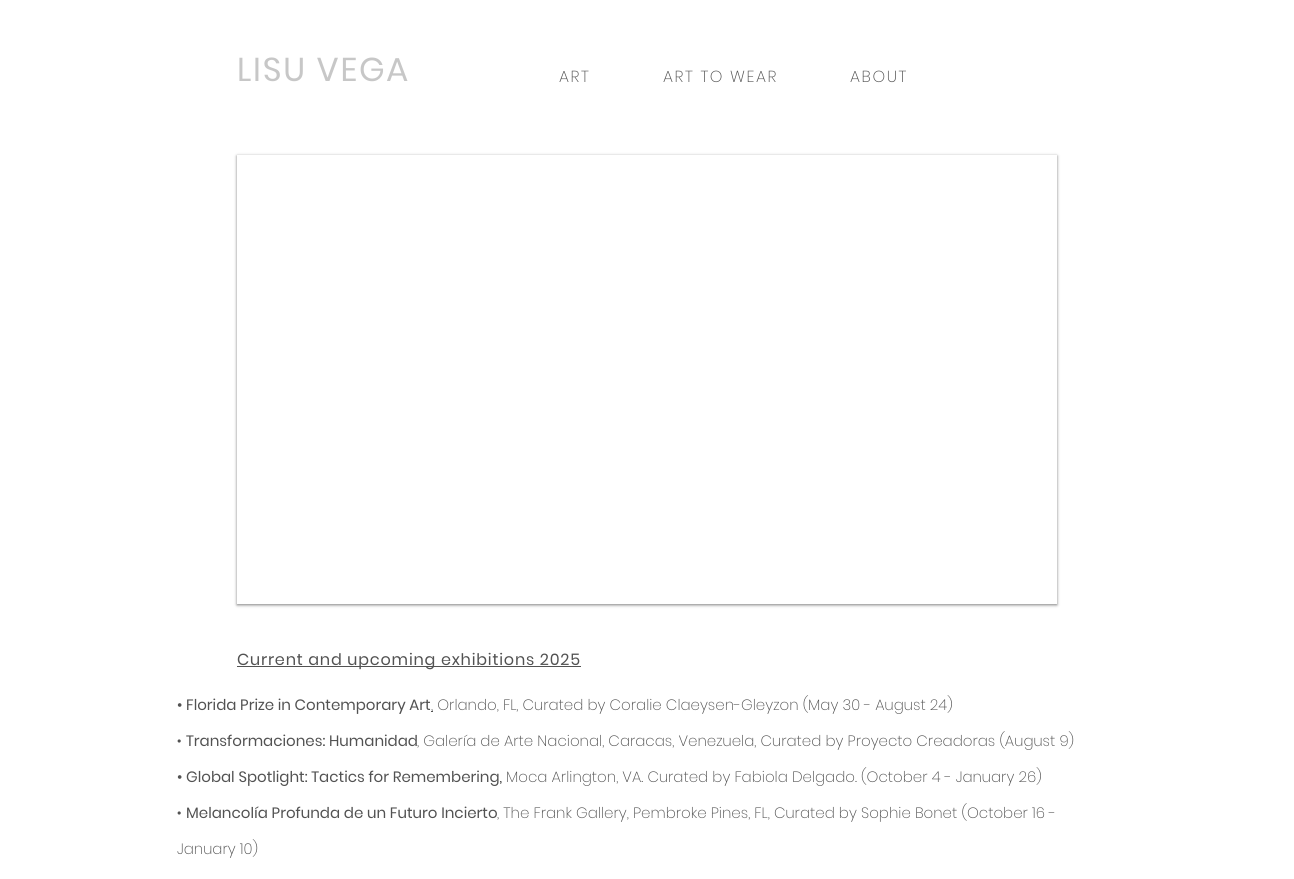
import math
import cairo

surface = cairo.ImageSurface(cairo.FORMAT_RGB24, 1294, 879)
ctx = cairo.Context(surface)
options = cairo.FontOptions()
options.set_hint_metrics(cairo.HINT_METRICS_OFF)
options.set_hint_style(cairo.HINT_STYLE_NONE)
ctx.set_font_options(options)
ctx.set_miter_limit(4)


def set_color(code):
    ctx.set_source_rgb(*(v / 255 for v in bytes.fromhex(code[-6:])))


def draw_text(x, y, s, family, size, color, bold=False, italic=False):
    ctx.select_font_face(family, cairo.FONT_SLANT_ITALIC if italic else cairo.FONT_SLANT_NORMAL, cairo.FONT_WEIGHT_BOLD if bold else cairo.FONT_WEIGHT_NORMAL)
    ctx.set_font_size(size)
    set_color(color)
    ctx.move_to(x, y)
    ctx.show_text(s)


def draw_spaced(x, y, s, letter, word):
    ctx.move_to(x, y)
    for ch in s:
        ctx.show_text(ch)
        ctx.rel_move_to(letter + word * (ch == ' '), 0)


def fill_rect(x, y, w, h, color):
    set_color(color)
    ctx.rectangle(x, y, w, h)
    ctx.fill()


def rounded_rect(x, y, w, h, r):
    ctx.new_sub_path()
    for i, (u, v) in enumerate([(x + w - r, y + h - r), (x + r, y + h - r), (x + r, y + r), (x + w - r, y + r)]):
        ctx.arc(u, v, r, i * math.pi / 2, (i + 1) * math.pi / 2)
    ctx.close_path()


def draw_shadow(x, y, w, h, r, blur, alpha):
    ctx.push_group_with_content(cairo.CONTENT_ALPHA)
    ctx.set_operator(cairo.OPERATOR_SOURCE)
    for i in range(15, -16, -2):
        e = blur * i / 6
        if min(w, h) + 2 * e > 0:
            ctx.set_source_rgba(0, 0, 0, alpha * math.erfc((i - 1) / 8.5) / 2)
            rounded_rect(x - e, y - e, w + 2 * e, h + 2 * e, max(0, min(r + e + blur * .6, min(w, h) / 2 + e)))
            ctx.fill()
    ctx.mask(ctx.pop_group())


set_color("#ffffff")
ctx.paint()
ctx.select_font_face("Poppins")
ctx.set_font_size(33)
set_color("#c7c7c7")
draw_spaced(237, 81, "LISU VEGA", 1.75, 0)
ctx.select_font_face("Poppins ExtraLight")
ctx.set_font_size(16)
set_color("#525252")
draw_spaced(559, 82, "ART", 1.6, 0)
draw_spaced(663, 82, "ART TO WEAR", 1.6, 0)
draw_spaced(850, 82, "ABOUT", 1.6, 0)
ctx.save()
ctx.set_fill_rule(cairo.FILL_RULE_EVEN_ODD)
ctx.new_path()
ctx.move_to(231, 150)
ctx.line_to(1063, 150)
ctx.line_to(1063, 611)
ctx.line_to(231, 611)
ctx.close_path()
ctx.move_to(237, 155)
ctx.line_to(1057, 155)
ctx.line_to(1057, 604)
ctx.line_to(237, 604)
ctx.close_path()
ctx.clip()
set_color("#000000")
draw_shadow(237, 156, 820, 449, 0, 1.5, 0.5)
ctx.restore()
fill_rect(237, 666, 344, 1, "#525252")
ctx.select_font_face("Poppins")
draw_spaced(237, 665, "Current and upcoming exhibitions 2025", 0.8, 0)
draw_text(177, 710, "• Florida Prize in Contemporary Art", "Poppins", 15, "#525252")
fill_rect(431, 711, 2, 1, "#525252")
draw_text(431, 710, ", Orlando, FL, Curated by Coralie Claeysen-Gleyzon (May 30 - August 24)", "Poppins ExtraLight", 15, "#525252")
draw_text(177, 746, "•", "Poppins ExtraLight", 15, "#525252")
draw_text(186, 746, "Transformaciones: Humanidad", "Poppins", 15, "#525252")
draw_text(417, 746, ", Galería de Arte Nacional, Caracas, Venezuela, Curated by Proyecto Creadoras (August 9)", "Poppins ExtraLight", 15, "#525252")
draw_text(177, 782, "• Global Spotlight: Tactics for Remembering,", "Poppins", 15, "#525252")
draw_text(506, 782, "Moca Arlington, VA. Curated by Fabiola Delgado. (October 4 - January 26)", "Poppins ExtraLight", 15, "#525252")
draw_text(177, 818, "•", "Poppins ExtraLight", 15, "#525252")
draw_text(186, 818, "Melancolía Profunda de un Futuro Incierto", "Poppins", 15, "#525252")
draw_text(497, 818, ", The Frank Gallery, Pembroke Pines, FL, Curated by Sophie Bonet (October 16 -", "Poppins ExtraLight", 15, "#525252")
draw_text(177, 854, "January 10)", "Poppins ExtraLight", 15, "#525252")
surface.write_to_png("output.png")
